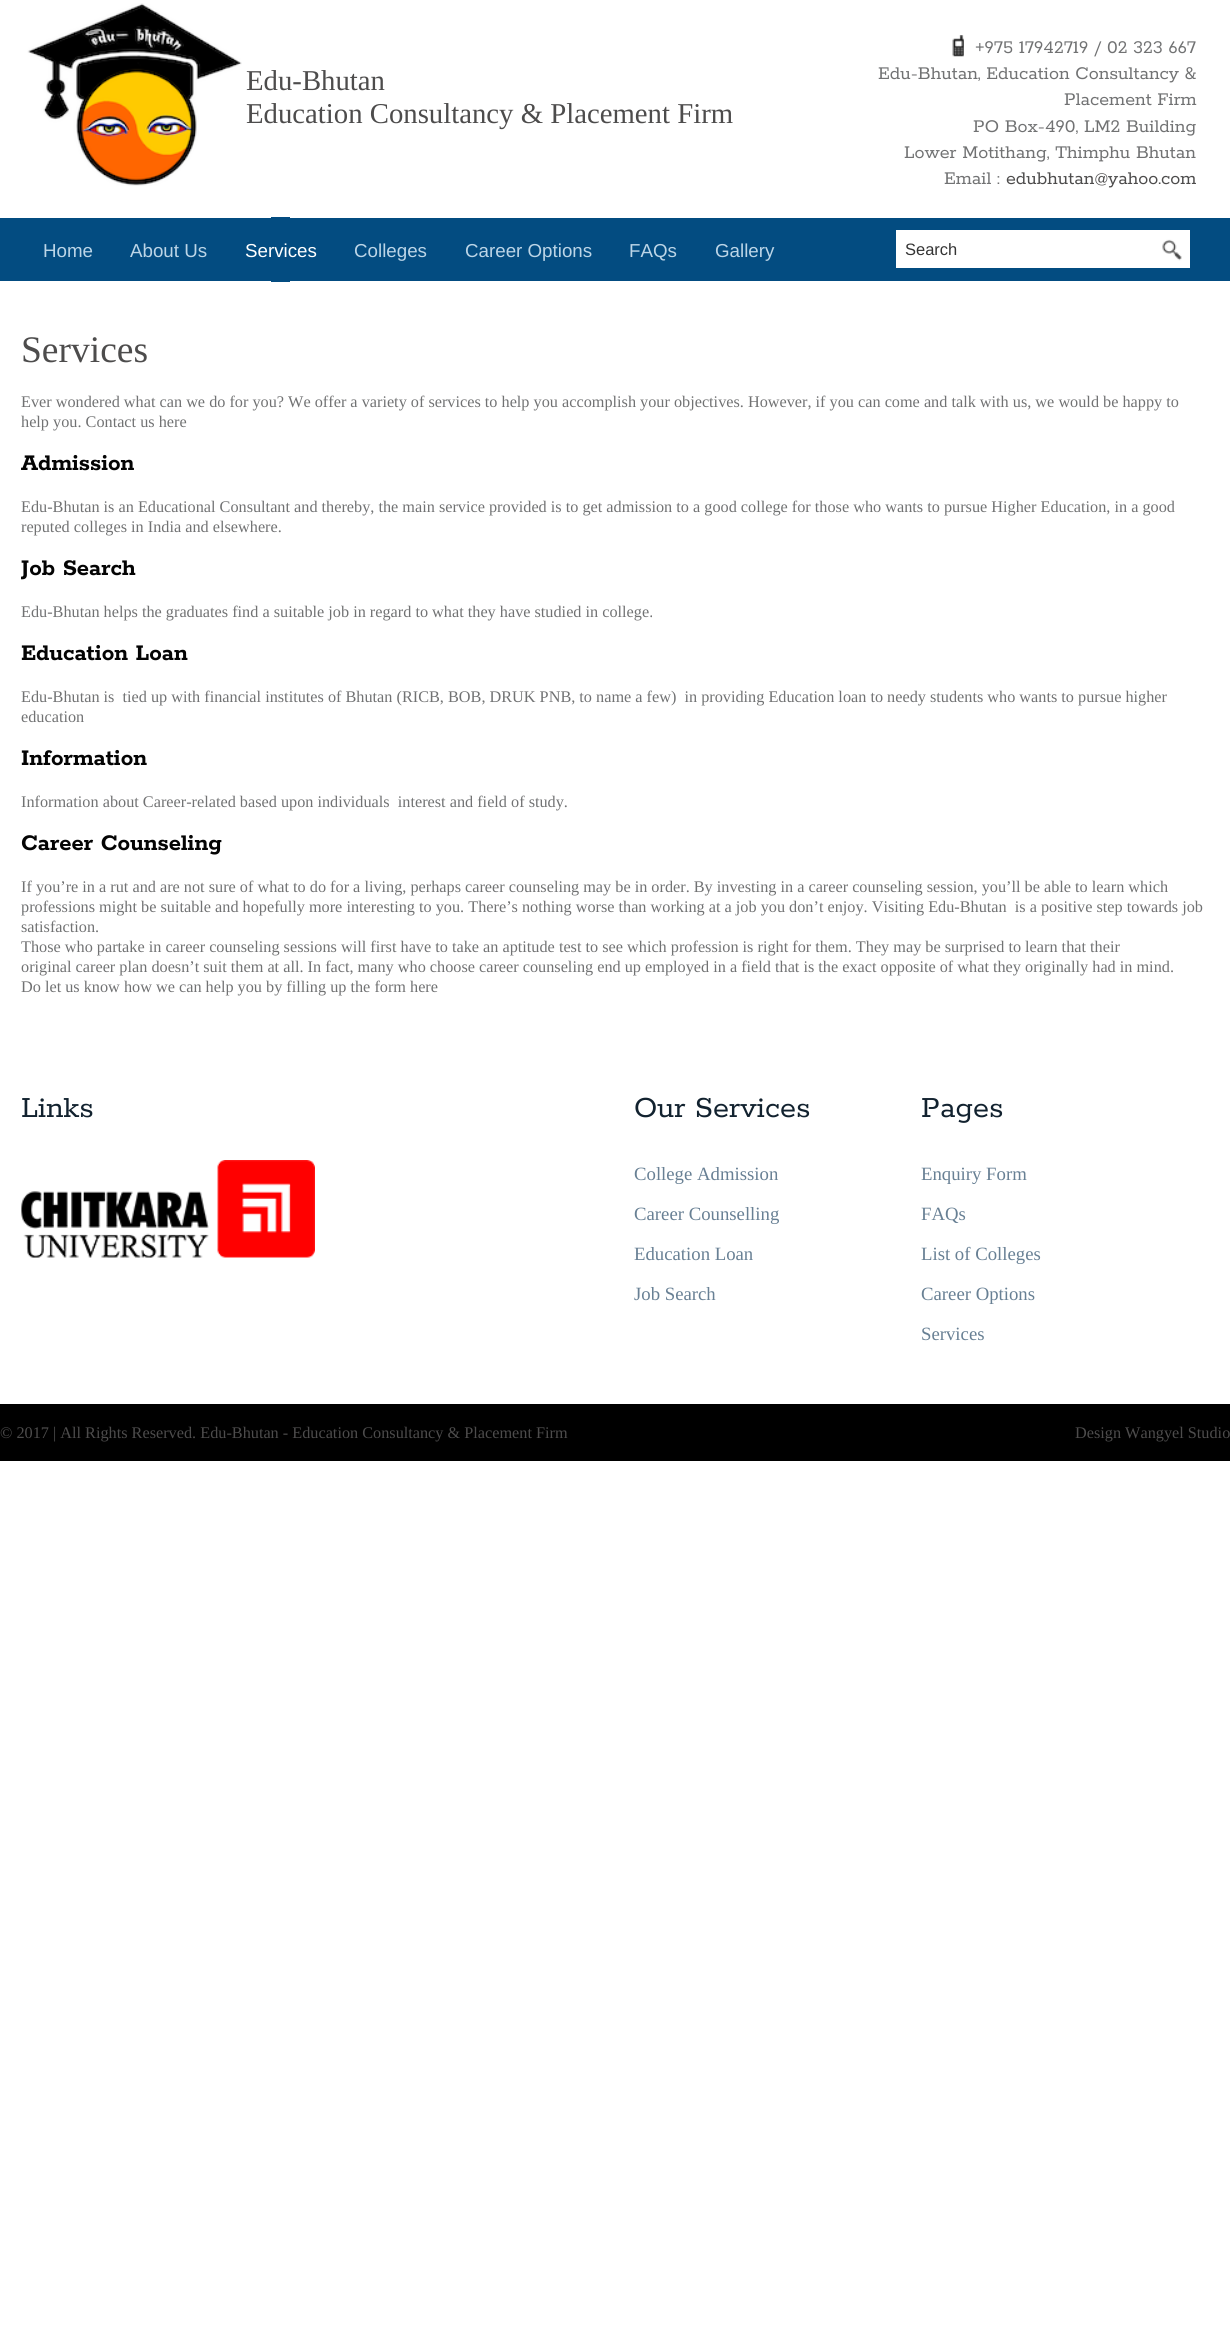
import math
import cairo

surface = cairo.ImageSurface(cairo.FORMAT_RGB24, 1230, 2352)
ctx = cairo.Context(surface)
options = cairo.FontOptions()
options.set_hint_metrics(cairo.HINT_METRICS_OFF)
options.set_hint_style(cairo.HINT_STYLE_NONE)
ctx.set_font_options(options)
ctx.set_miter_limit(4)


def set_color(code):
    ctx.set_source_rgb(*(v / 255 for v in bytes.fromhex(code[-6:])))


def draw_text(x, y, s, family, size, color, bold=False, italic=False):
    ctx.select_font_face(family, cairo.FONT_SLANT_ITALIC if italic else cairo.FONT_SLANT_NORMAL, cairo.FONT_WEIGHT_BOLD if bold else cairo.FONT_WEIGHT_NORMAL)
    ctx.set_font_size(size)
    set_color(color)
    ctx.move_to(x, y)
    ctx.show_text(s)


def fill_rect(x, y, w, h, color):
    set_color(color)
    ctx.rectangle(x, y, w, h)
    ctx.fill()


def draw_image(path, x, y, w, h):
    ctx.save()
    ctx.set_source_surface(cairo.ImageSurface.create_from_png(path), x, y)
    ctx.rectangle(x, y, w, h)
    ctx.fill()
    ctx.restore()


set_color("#ffffff")
ctx.paint()
draw_image("assets/img1.png", 27, 3, 215, 183)
draw_text(246, 90, "Edu-Bhutan", "Liberation Serif", 28.75, "#4d4c4c")
draw_text(246, 123, "Education Consultancy & Placement Firm", "Liberation Serif", 28.75, "#4d4c4c")
draw_image("assets/img2.png", 952, 35, 12, 22)
draw_text(975, 53, "+975 17942719 / 02 323 667", "Rokkitt", 20, "#717273")
draw_text(878, 79, "Edu-Bhutan, Education Consultancy &", "Rokkitt", 20, "#717273")
draw_text(1064, 105, "Placement Firm", "Rokkitt", 20, "#717273")
draw_text(973, 132, "PO Box-490, LM2 Building", "Rokkitt", 20, "#717273")
draw_text(904, 158, "Lower Motithang, Thimphu Bhutan", "Rokkitt", 20, "#717273")
draw_text(944, 184, "Email :", "Rokkitt", 20, "#717273")
draw_text(1006, 184, "edubhutan@yahoo.com", "Rokkitt", 20, "#4d4c4c")
fill_rect(0, 218, 1230, 63, "#034c81")
draw_text(43, 257, "Home", "Liberation Sans", 18.75, "#bcd5e7")
draw_text(130, 257, "About Us", "Liberation Sans", 18.75, "#bcd5e7")
fill_rect(271, 217, 19, 65, "#034c81")
draw_text(245, 257, "Services", "Liberation Sans", 18.75, "#ffffff")
draw_text(354, 257, "Colleges", "Liberation Sans", 18.75, "#bcd5e7")
draw_text(465, 257, "Career Options", "Liberation Sans", 18.75, "#bcd5e7")
draw_text(629, 257, "FAQs", "Liberation Sans", 18.75, "#bcd5e7")
draw_text(715, 257, "Gallery", "Liberation Sans", 18.75, "#bcd5e7")
fill_rect(896, 230, 294, 38, "#ffffff")
draw_text(905, 255, "Search", "Liberation Sans", 16.5, "#343434")
draw_image("assets/img3.png", 1162, 239, 20, 22)
draw_text(21, 362, "Services", "Liberation Serif", 37.5, "#4d4c4c")
draw_text(21, 407, "Ever wondered what can we do for you? We offer a variety of services to help you accomplish your objectives. However, if you can come and talk with us, we would be happy to", "Liberation Serif", 16.25, "#717273")
draw_text(21, 427, "help you. Contact us here", "Liberation Serif", 16.25, "#717273")
draw_text(21, 470, "Admission", "Rokkitt", 25, "#040404", bold=True)
draw_text(21, 512, "Edu-Bhutan is an Educational Consultant and thereby, the main service provided is to get admission to a good college for those who wants to pursue Higher Education, in a good", "Liberation Serif", 16.25, "#717273")
draw_text(21, 532, "reputed colleges in India and elsewhere.", "Liberation Serif", 16.25, "#717273")
ctx.save()
ctx.rectangle(21, 281, 1188, 753)
ctx.clip()
draw_text(21, 575, "Job Search", "Rokkitt", 25, "#040404", bold=True)
ctx.restore()
draw_text(21, 617, "Edu-Bhutan helps the graduates find a suitable job in regard to what they have studied in college.", "Liberation Serif", 16.25, "#717273")
draw_text(21, 660, "Education Loan", "Rokkitt", 25, "#040404", bold=True)
draw_text(21, 702, "Edu-Bhutan is  tied up with financial institutes of Bhutan (RICB, BOB, DRUK PNB, to name a few)  in providing Education loan to needy students who wants to pursue higher", "Liberation Serif", 16.25, "#717273")
draw_text(21, 722, "education", "Liberation Serif", 16.25, "#717273")
draw_text(21, 765, "Information", "Rokkitt", 25, "#040404", bold=True)
draw_text(21, 807, "Information about Career-related based upon individuals  interest and field of study.", "Liberation Serif", 16.25, "#717273")
draw_text(21, 850, "Career Counseling", "Rokkitt", 25, "#040404", bold=True)
draw_text(21, 892, "If you’re in a rut and are not sure of what to do for a living, perhaps career counseling may be in order. By investing in a career counseling session, you’ll be able to learn which", "Liberation Serif", 16.25, "#717273")
draw_text(21, 912, "professions might be suitable and hopefully more interesting to you. There’s nothing worse than working at a job you don’t enjoy. Visiting Edu-Bhutan  is a positive step towards job", "Liberation Serif", 16.25, "#717273")
draw_text(21, 932, "satisfaction.", "Liberation Serif", 16.25, "#717273")
draw_text(21, 952, "Those who partake in career counseling sessions will first have to take an aptitude test to see which profession is right for them. They may be surprised to learn that their", "Liberation Serif", 16.25, "#717273")
draw_text(21, 972, "original career plan doesn’t suit them at all. In fact, many who choose career counseling end up employed in a field that is the exact opposite of what they originally had in mind.", "Liberation Serif", 16.25, "#717273")
draw_text(21, 992, "Do let us know how we can help you by filling up the form here", "Liberation Serif", 16.25, "#717273")
draw_text(21, 1117, "Links", "Rokkitt", 32.5, "#12222f")
draw_image("assets/img4.png", 21, 1160, 294, 98)
draw_text(634, 1117, "Our Services", "Rokkitt", 32.5, "#12222f")
draw_text(634, 1180, "College Admission", "Liberation Serif", 18.75, "#688094")
draw_text(634, 1220, "Career Counselling", "Liberation Serif", 18.75, "#688094")
draw_text(634, 1260, "Education Loan", "Liberation Serif", 18.75, "#688094")
draw_text(634, 1300, "Job Search", "Liberation Serif", 18.75, "#688094")
draw_text(921, 1117, "Pages", "Rokkitt", 32.5, "#12222f")
draw_text(921, 1180, "Enquiry Form", "Liberation Serif", 18.75, "#688094")
draw_text(921, 1220, "FAQs", "Liberation Serif", 18.75, "#688094")
draw_text(921, 1260, "List of Colleges", "Liberation Serif", 18.75, "#688094")
draw_text(921, 1300, "Career Options", "Liberation Serif", 18.75, "#688094")
draw_text(921, 1340, "Services", "Liberation Serif", 18.75, "#688094")
fill_rect(0, 1404, 1230, 57, "#000000")
draw_text(0, 1438, "© 2017 | All Rights Reserved. Edu-Bhutan - Education Consultancy & Placement Firm", "Liberation Serif", 16.25, "#4d4c4c")
draw_text(1075, 1438, "Design Wangyel Studio", "Liberation Serif", 16.25, "#4d4c4c")
surface.write_to_png("output.png")
